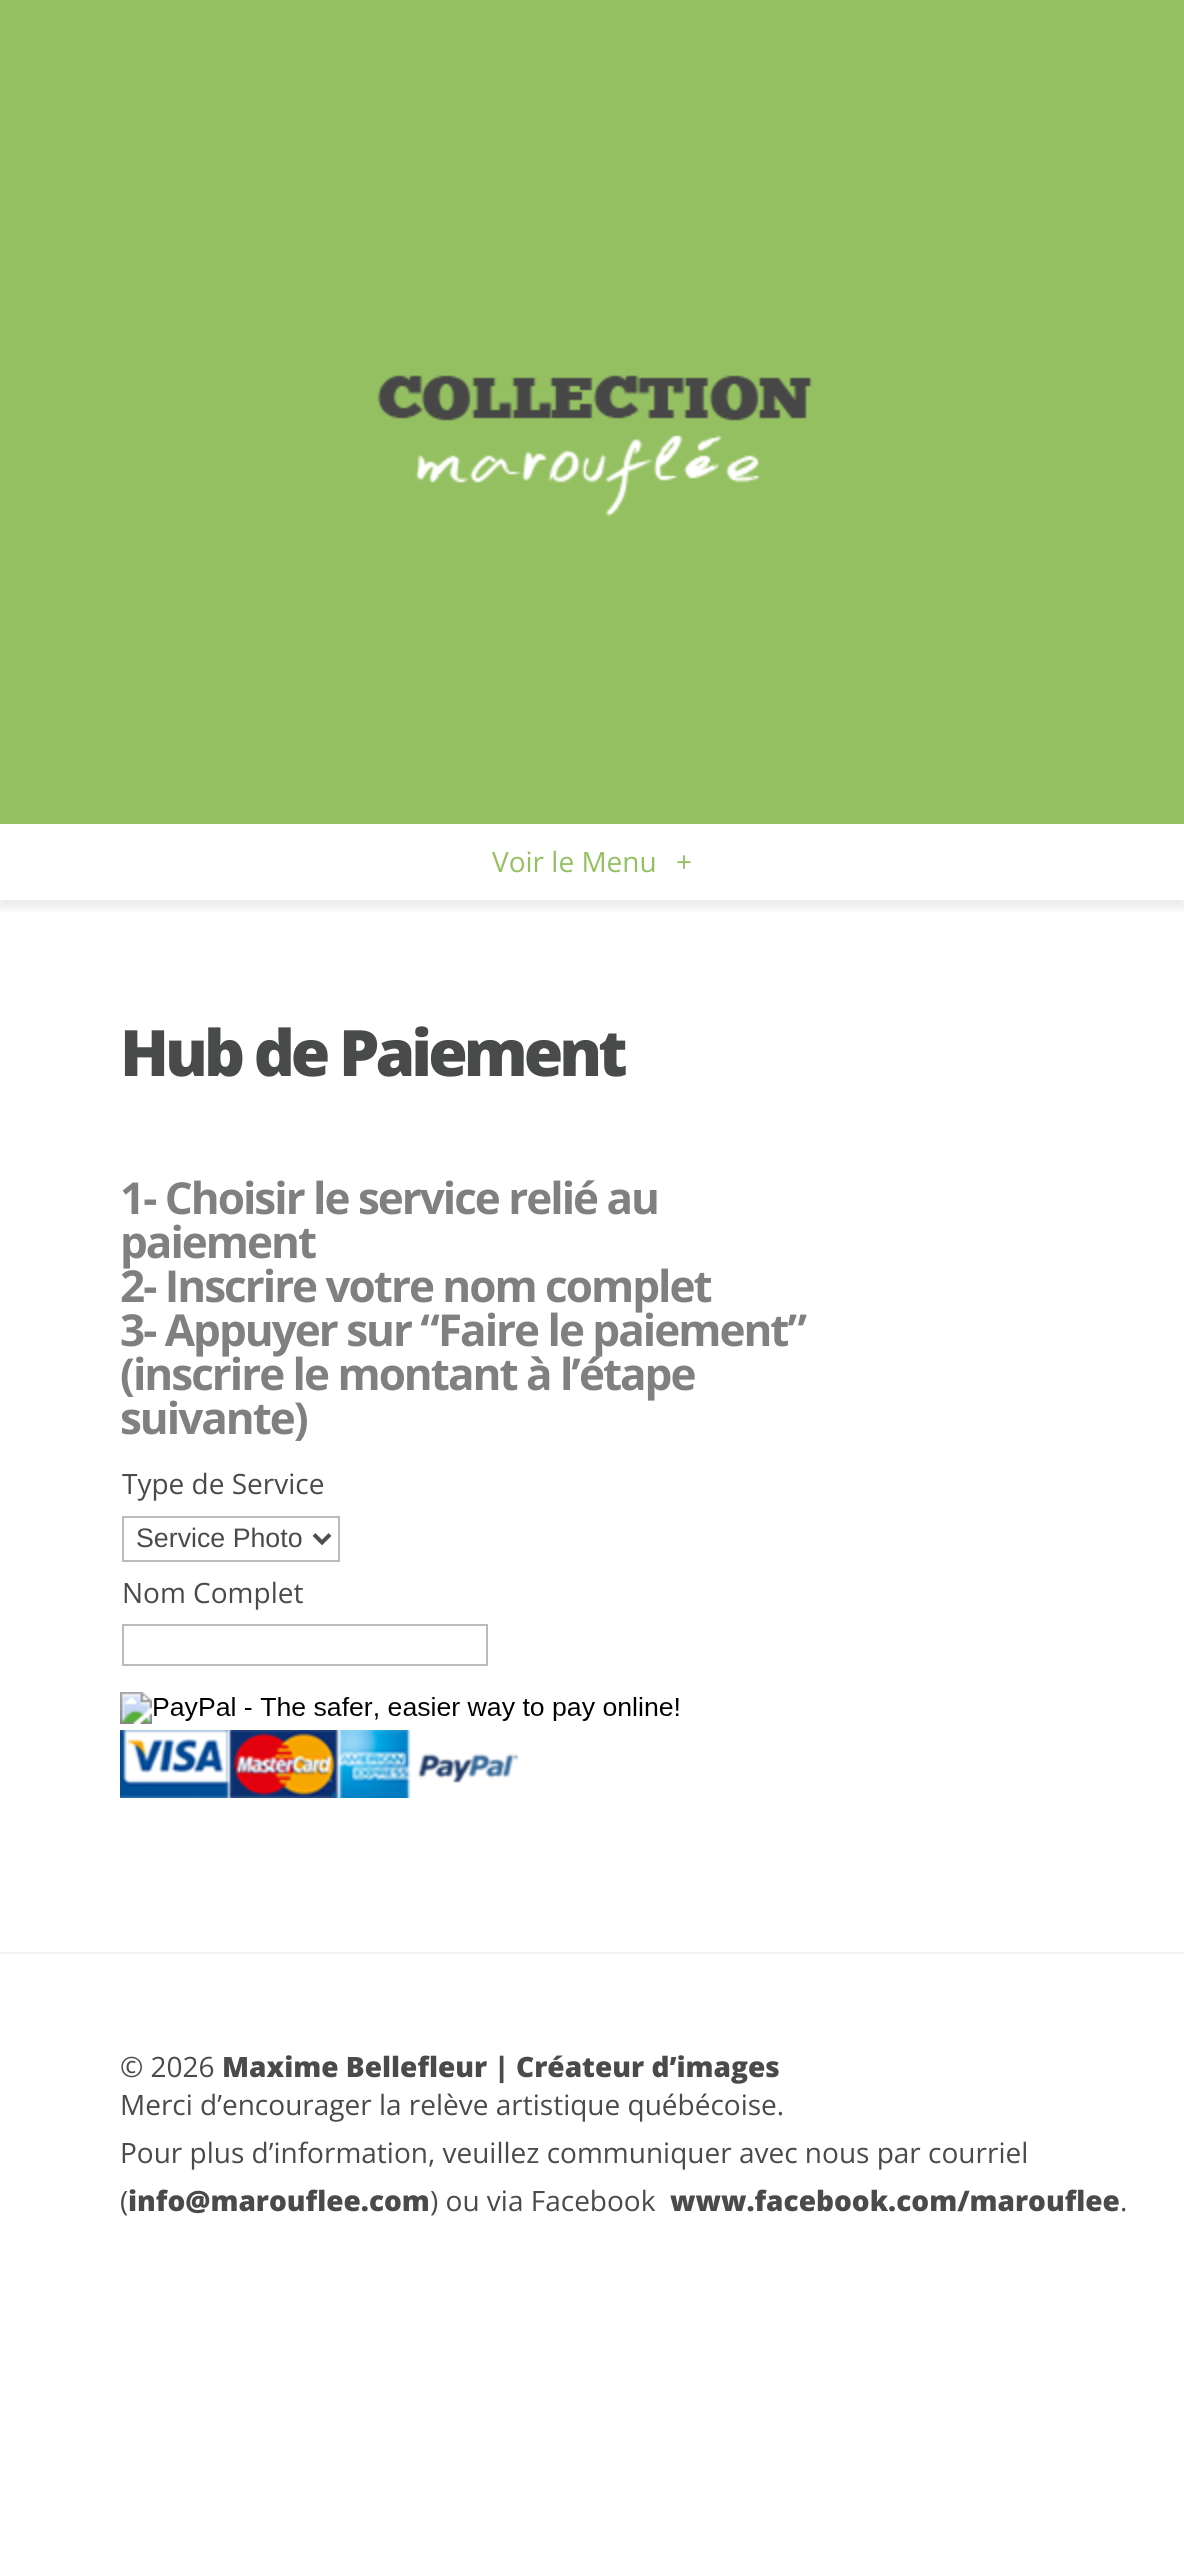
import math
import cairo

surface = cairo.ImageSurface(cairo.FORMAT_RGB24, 1184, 2563)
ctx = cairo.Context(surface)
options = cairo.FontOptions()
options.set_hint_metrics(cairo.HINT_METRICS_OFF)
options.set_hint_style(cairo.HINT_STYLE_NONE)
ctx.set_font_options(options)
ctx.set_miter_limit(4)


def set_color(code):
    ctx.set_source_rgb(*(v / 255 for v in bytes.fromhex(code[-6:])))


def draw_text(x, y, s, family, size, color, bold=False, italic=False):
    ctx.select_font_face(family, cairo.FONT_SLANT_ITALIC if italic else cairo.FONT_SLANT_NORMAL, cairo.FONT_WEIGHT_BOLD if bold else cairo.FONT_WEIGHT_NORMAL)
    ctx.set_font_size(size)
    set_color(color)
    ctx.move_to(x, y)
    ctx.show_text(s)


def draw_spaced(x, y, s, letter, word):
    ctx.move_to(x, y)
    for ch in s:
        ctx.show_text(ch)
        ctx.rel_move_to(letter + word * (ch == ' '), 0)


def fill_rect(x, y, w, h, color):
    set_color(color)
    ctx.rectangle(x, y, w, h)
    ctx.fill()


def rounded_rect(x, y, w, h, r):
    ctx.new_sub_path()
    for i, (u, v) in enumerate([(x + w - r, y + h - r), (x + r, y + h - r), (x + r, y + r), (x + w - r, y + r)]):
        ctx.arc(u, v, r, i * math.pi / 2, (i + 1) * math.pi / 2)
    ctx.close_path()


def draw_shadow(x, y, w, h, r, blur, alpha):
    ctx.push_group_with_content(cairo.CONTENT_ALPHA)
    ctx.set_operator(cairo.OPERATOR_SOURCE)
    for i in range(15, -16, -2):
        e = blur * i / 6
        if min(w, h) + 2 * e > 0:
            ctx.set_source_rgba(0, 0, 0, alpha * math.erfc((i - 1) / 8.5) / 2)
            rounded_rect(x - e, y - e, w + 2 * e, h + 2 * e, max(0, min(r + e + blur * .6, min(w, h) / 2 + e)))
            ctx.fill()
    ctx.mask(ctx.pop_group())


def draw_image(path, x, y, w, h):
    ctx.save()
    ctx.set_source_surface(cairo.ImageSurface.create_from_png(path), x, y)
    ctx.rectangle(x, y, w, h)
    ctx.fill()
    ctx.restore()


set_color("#ffffff")
ctx.paint()
set_color("#000000")
draw_shadow(0, 8, 1184, 900, 0, 4, 0.08)
fill_rect(0, 0, 1184, 824, "#95c062")
draw_image("assets/img1.png", 377, 375, 436, 142)
fill_rect(0, 824, 1184, 76, "#ffffff")
draw_text(492, 872, "Voir le Menu", "Open Sans", 28, "#95c062")
draw_text(676, 872, "+", "Open Sans", 28, "#95c062")
ctx.select_font_face("Open Sans ExtraBold")
ctx.set_font_size(64)
set_color("#494b4b")
draw_spaced(120, 1076, "Hub de Paiement", -4, 0)
ctx.select_font_face("Open Sans", cairo.FONT_SLANT_NORMAL, cairo.FONT_WEIGHT_BOLD)
ctx.set_font_size(44)
set_color("#808080")
draw_spaced(120, 1214, "1- Choisir le service relié au", -2, 0)
draw_spaced(120, 1258, "paiement", -2, 0)
draw_spaced(120, 1302, "2- Inscrire votre nom complet", -2, 0)
draw_spaced(120, 1346, "3- Appuyer sur “Faire le paiement”", -2, 0)
draw_spaced(120, 1390, "(inscrire le montant à l’étape", -2, 0)
draw_spaced(120, 1434, "suivante)", -2, 0)
draw_text(122, 1494, "Type de Service", "Open Sans", 28, "#494b4b")
ctx.rectangle(123, 1517, 216, 44)
set_color("#bbbbbb")
ctx.stroke()
ctx.new_path()
ctx.move_to(314, 1534.5)
ctx.line_to(322, 1542.5)
ctx.line_to(330, 1534.5)
set_color("#4e4e4e")
ctx.set_line_width(4)
ctx.stroke()
draw_text(136, 1547, "Service Photo", "Liberation Sans", 26.75, "#494b4b")
draw_text(122, 1603, "Nom Complet", "Open Sans", 28, "#494b4b")
ctx.rectangle(123, 1625, 364, 40)
set_color("#bbbbbb")
ctx.set_line_width(2)
ctx.stroke()
draw_image("assets/img2.png", 120, 1692, 559, 32)
draw_image("assets/img3.png", 120, 1730, 399, 68)
fill_rect(0, 1952, 1184, 2, "#f3f3f3")
draw_text(120, 2077, "© 2026", "Open Sans", 28, "#494b4b")
draw_text(222, 2077, "Maxime Bellefleur | Créateur d’images", "Open Sans ExtraBold", 28, "#494b4b")
draw_text(120, 2115, "Merci d’encourager la relève artistique québécoise.", "Open Sans", 28, "#494b4b")
draw_text(120, 2163, "Pour plus d’information, veuillez communiquer avec nous par courriel", "Open Sans", 28, "#494b4b")
draw_text(120, 2211, "(", "Open Sans", 28, "#494b4b")
draw_text(128, 2211, "info@marouflee.com", "Open Sans ExtraBold", 28, "#494b4b")
draw_text(430, 2211, ") ou via Facebook", "Open Sans", 28, "#494b4b")
draw_text(670, 2211, "www.facebook.com/marouflee", "Open Sans ExtraBold", 28, "#494b4b")
draw_text(1120, 2211, ".", "Open Sans", 28, "#494b4b")
surface.write_to_png("output.png")
